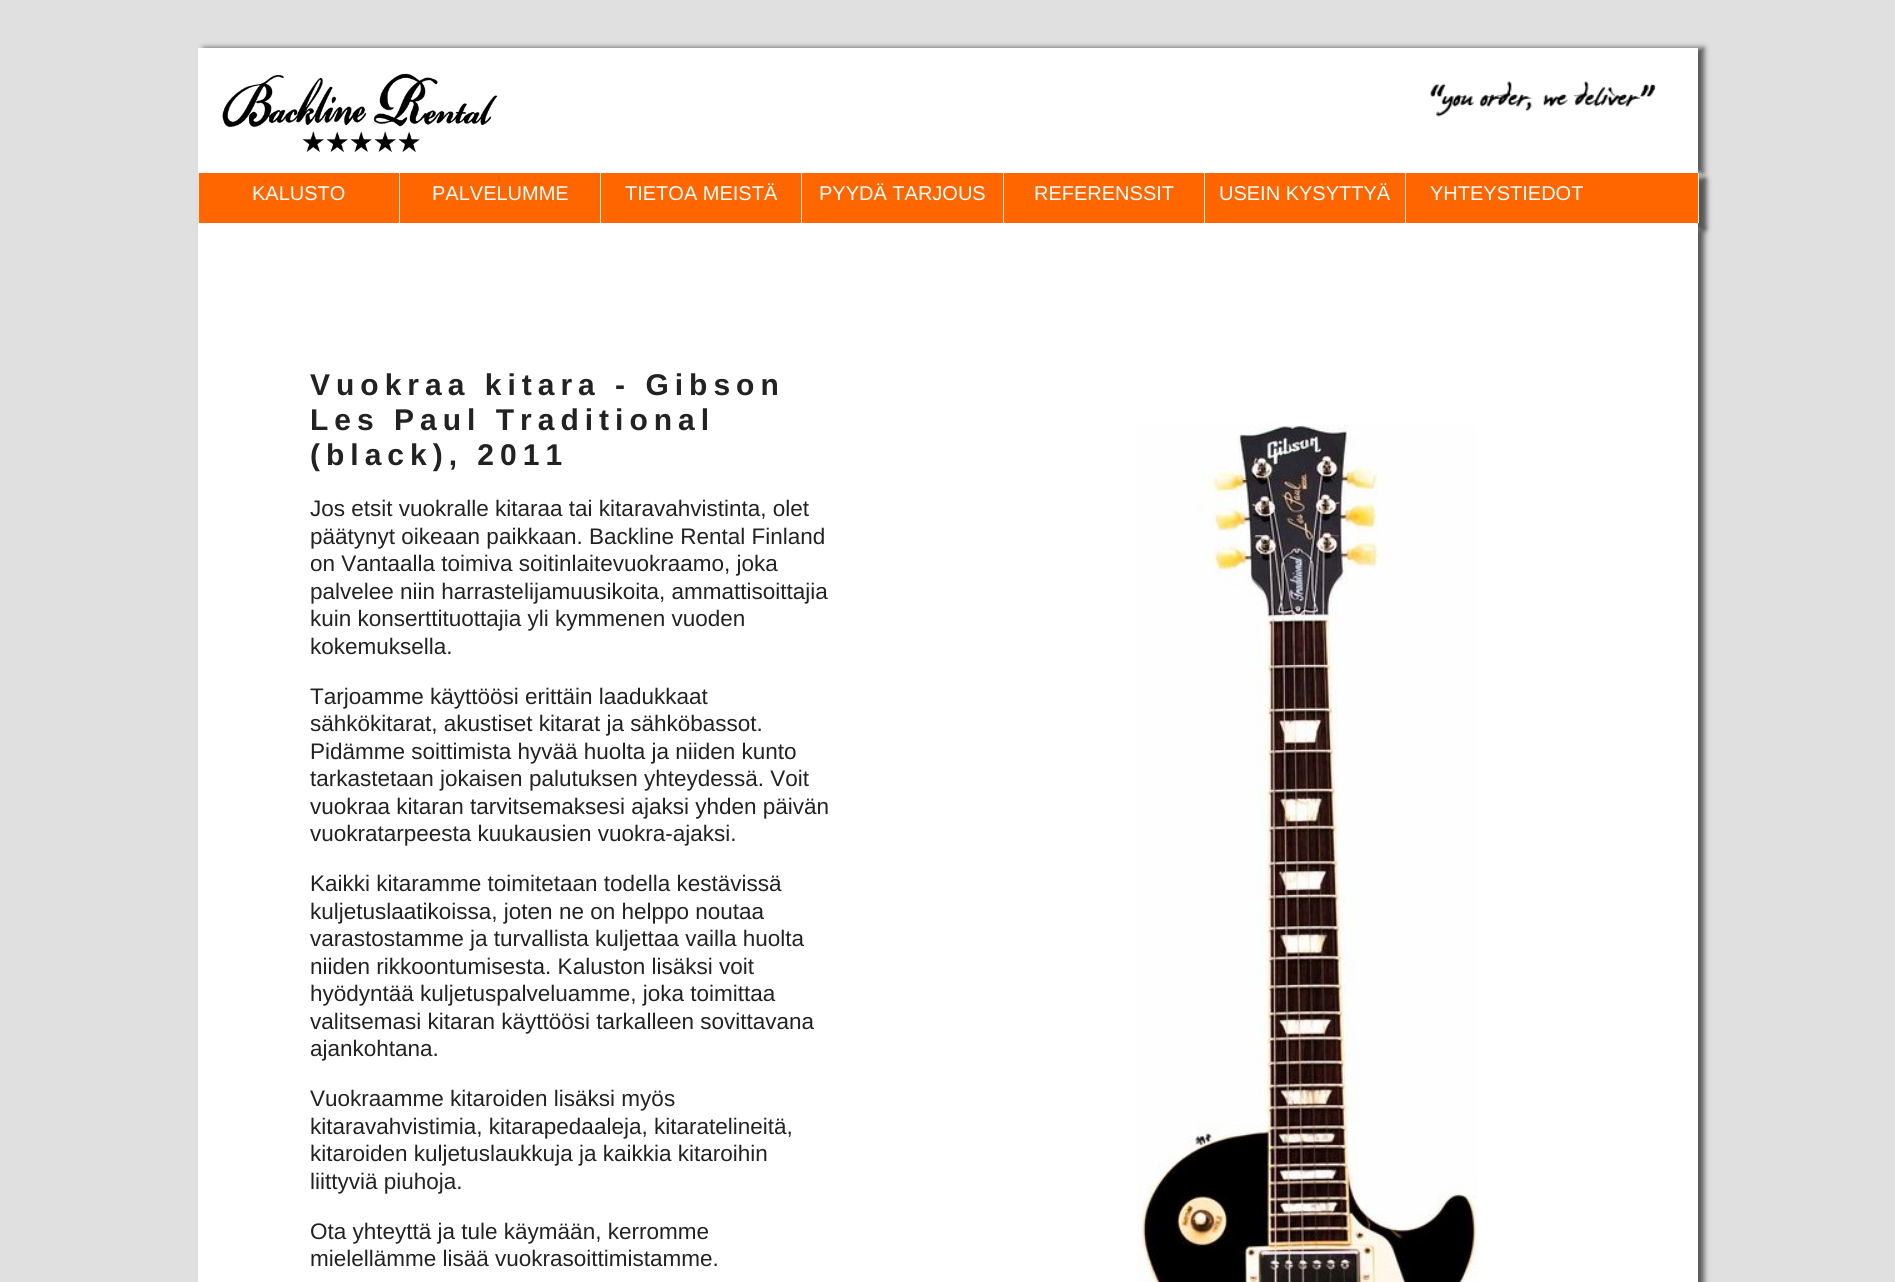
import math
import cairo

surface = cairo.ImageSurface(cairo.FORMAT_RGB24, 1895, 1282)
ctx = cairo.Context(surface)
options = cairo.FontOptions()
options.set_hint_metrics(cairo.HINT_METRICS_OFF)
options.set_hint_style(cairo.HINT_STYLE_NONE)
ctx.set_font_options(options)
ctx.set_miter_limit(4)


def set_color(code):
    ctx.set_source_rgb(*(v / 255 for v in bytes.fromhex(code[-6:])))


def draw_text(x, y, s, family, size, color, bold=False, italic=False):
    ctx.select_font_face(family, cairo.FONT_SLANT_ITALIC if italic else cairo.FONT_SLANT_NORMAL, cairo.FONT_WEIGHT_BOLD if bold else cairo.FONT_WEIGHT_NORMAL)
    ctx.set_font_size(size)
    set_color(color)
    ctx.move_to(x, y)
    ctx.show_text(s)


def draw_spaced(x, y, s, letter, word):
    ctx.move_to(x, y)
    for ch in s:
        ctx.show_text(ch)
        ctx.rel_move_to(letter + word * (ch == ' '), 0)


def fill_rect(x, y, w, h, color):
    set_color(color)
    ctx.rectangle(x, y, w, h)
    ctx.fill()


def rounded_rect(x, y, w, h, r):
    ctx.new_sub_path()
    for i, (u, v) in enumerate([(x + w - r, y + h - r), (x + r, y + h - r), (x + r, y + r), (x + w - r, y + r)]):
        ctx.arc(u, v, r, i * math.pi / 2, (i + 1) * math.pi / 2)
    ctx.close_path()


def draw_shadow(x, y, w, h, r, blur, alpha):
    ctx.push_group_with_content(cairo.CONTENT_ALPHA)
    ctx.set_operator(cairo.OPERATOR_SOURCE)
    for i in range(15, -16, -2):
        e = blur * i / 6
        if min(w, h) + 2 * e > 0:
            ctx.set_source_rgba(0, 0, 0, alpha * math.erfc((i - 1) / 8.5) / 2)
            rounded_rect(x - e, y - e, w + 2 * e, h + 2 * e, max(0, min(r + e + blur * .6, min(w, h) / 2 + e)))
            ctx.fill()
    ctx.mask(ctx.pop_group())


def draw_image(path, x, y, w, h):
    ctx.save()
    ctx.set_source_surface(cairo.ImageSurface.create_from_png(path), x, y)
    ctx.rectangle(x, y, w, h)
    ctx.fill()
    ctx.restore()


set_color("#e0e0e0")
ctx.paint()
set_color("#555555")
draw_shadow(204, 48, 1500, 125, 0, 3, 1)
fill_rect(198, 48, 1500, 125, "#ffffff")
draw_image("assets/img1.png", 222, 73, 276, 79)
draw_image("assets/img2.png", 1429, 81, 227, 36)
set_color("#555555")
draw_shadow(204, 179, 1501, 50, 0, 3, 1)
draw_shadow(204, 179, 1501, 50, 0, 3, 1)
fill_rect(199, 173, 1499, 50, "#ff6600")
fill_rect(1698, 173, 1, 50, "#edebd5")
fill_rect(198, 173, 1, 50, "#edebd5")
draw_text(252, 200, "KALUSTO", "Liberation Sans", 20, "#ffffff")
fill_rect(399, 173, 1, 50, "#edebd5")
draw_text(432, 200, "PALVELUMME", "Liberation Sans", 20, "#ffffff")
fill_rect(600, 173, 1, 50, "#edebd5")
draw_text(625, 200, "TIETOA MEISTÄ", "Liberation Sans", 20, "#ffffff")
fill_rect(801, 173, 1, 50, "#edebd5")
draw_text(819, 200, "PYYDÄ TARJOUS", "Liberation Sans", 20, "#ffffff")
fill_rect(1003, 173, 1, 50, "#edebd5")
draw_text(1034, 200, "REFERENSSIT", "Liberation Sans", 20, "#ffffff")
fill_rect(1204, 173, 1, 50, "#edebd5")
draw_text(1219, 200, "USEIN KYSYTTYÄ", "Liberation Sans", 20, "#ffffff")
fill_rect(1405, 173, 1, 50, "#edebd5")
draw_text(1430, 200, "YHTEYSTIEDOT", "Liberation Sans", 20, "#ffffff")
set_color("#555555")
draw_shadow(204, 229, 1500, 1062, 0, 3, 1)
fill_rect(198, 223, 1500, 1059, "#ffffff")
ctx.select_font_face("Liberation Sans", cairo.FONT_SLANT_NORMAL, cairo.FONT_WEIGHT_BOLD)
ctx.set_font_size(30)
set_color("#222222")
draw_spaced(310, 395, "Vuokraa kitara - Gibson", 6, 0)
draw_spaced(310, 430, "Les Paul Traditional", 6, 0)
draw_spaced(310, 465, "(black), 2011", 6, 0)
draw_text(310, 516, "Jos etsit vuokralle kitaraa tai kitaravahvistinta, olet", "Liberation Sans", 22.5, "#222222")
draw_text(310, 544, "päätynyt oikeaan paikkaan. Backline Rental Finland", "Liberation Sans", 22.5, "#222222")
draw_text(310, 571, "on Vantaalla toimiva soitinlaitevuokraamo, joka", "Liberation Sans", 22.5, "#222222")
draw_text(310, 599, "palvelee niin harrastelijamuusikoita, ammattisoittajia", "Liberation Sans", 22.5, "#222222")
draw_text(310, 626, "kuin konserttituottajia yli kymmenen vuoden", "Liberation Sans", 22.5, "#222222")
draw_text(310, 654, "kokemuksella.", "Liberation Sans", 22.5, "#222222")
draw_text(310, 704, "Tarjoamme käyttöösi erittäin laadukkaat", "Liberation Sans", 22.5, "#222222")
draw_text(310, 731, "sähkökitarat, akustiset kitarat ja sähköbassot.", "Liberation Sans", 22.5, "#222222")
draw_text(310, 759, "Pidämme soittimista hyvää huolta ja niiden kunto", "Liberation Sans", 22.5, "#222222")
draw_text(310, 786, "tarkastetaan jokaisen palutuksen yhteydessä. Voit", "Liberation Sans", 22.5, "#222222")
draw_text(310, 814, "vuokraa kitaran tarvitsemaksesi ajaksi yhden päivän", "Liberation Sans", 22.5, "#222222")
draw_text(310, 841, "vuokratarpeesta kuukausien vuokra-ajaksi.", "Liberation Sans", 22.5, "#222222")
draw_text(310, 891, "Kaikki kitaramme toimitetaan todella kestävissä", "Liberation Sans", 22.5, "#222222")
draw_text(310, 919, "kuljetuslaatikoissa, joten ne on helppo noutaa", "Liberation Sans", 22.5, "#222222")
draw_text(310, 946, "varastostamme ja turvallista kuljettaa vailla huolta", "Liberation Sans", 22.5, "#222222")
draw_text(310, 974, "niiden rikkoontumisesta. Kaluston lisäksi voit", "Liberation Sans", 22.5, "#222222")
draw_text(310, 1001, "hyödyntää kuljetuspalveluamme, joka toimittaa", "Liberation Sans", 22.5, "#222222")
draw_text(310, 1029, "valitsemasi kitaran käyttöösi tarkalleen sovittavana", "Liberation Sans", 22.5, "#222222")
draw_text(310, 1056, "ajankohtana.", "Liberation Sans", 22.5, "#222222")
draw_text(310, 1106, "Vuokraamme kitaroiden lisäksi myös", "Liberation Sans", 22.5, "#222222")
draw_text(310, 1134, "kitaravahvistimia, kitarapedaaleja, kitaratelineitä,", "Liberation Sans", 22.5, "#222222")
draw_text(310, 1161, "kitaroiden kuljetuslaukkuja ja kaikkia kitaroihin", "Liberation Sans", 22.5, "#222222")
draw_text(310, 1189, "liittyviä piuhoja.", "Liberation Sans", 22.5, "#222222")
draw_text(310, 1239, "Ota yhteyttä ja tule käymään, kerromme", "Liberation Sans", 22.5, "#222222")
draw_text(310, 1266, "mielellämme lisää vuokrasoittimistamme.", "Liberation Sans", 22.5, "#222222")
draw_image("assets/img3.png", 1137, 425, 341, 857)
surface.write_to_png("output.png")
